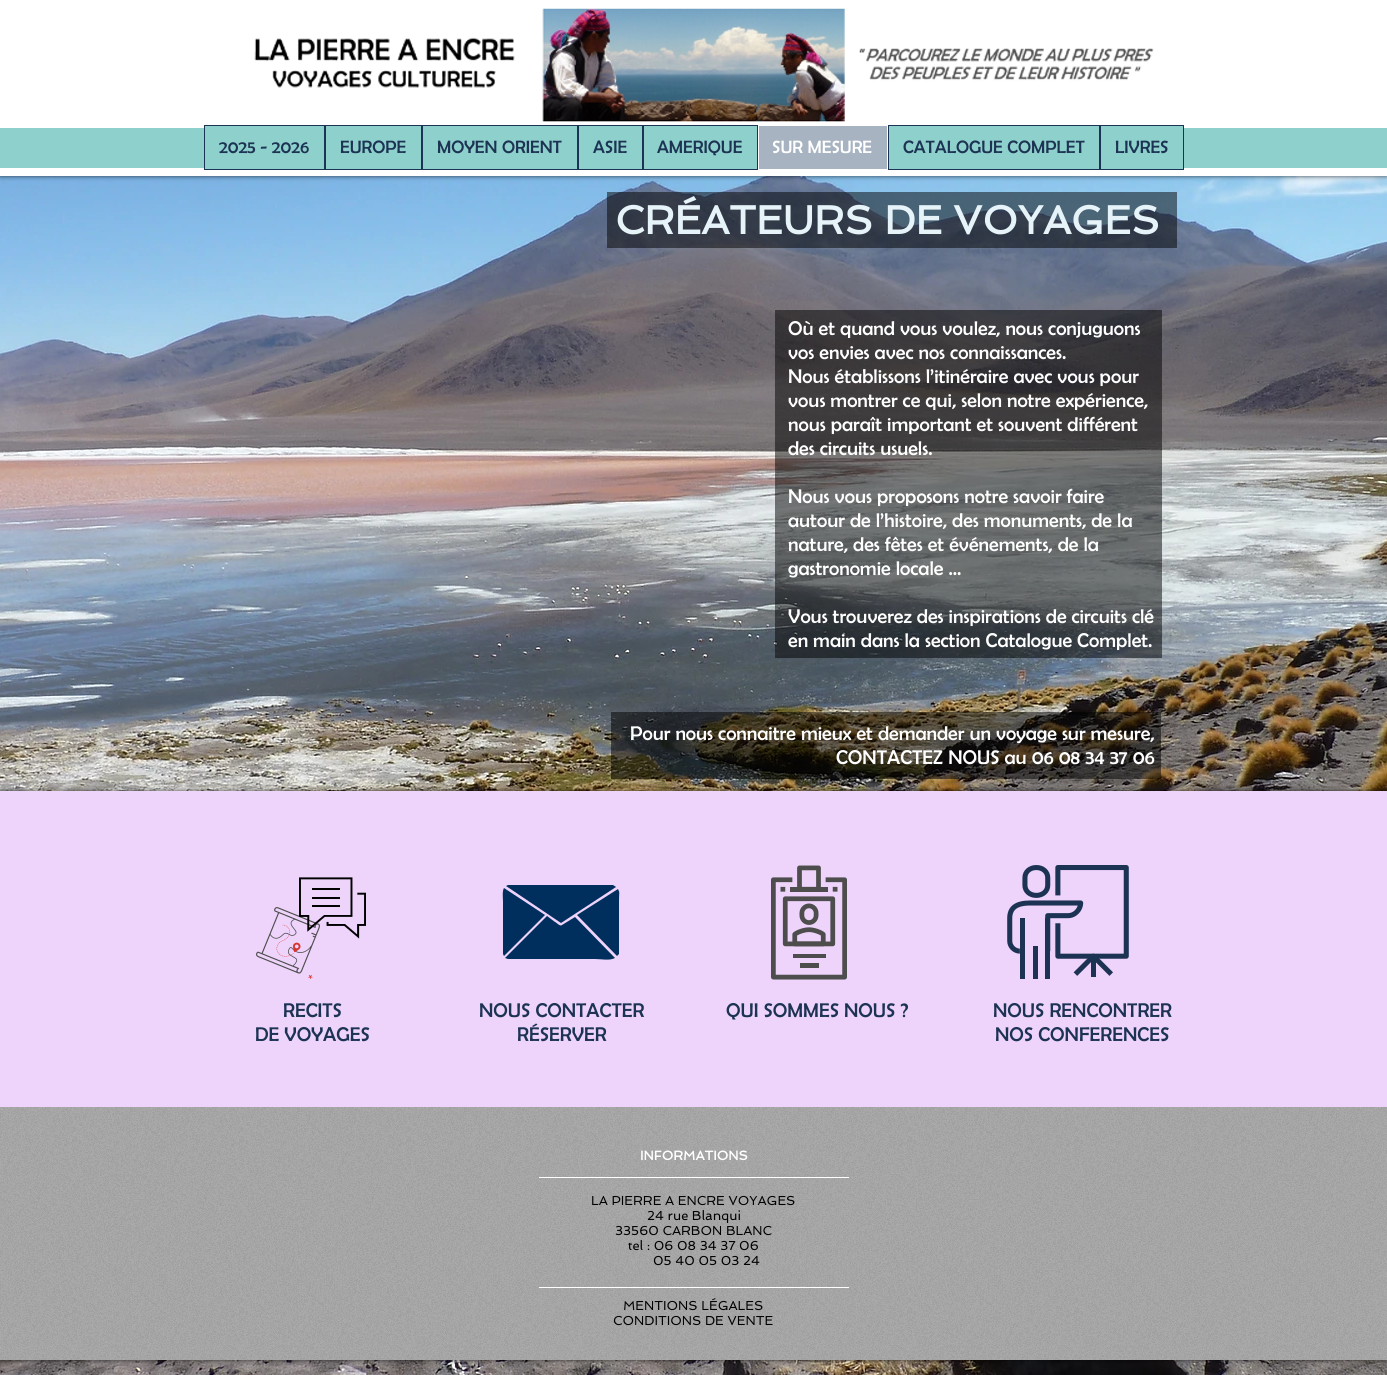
import math
import cairo

surface = cairo.ImageSurface(cairo.FORMAT_RGB24, 1387, 1375)
ctx = cairo.Context(surface)
options = cairo.FontOptions()
options.set_hint_metrics(cairo.HINT_METRICS_OFF)
options.set_hint_style(cairo.HINT_STYLE_NONE)
ctx.set_font_options(options)
ctx.set_miter_limit(4)


def set_color(code):
    ctx.set_source_rgb(*(v / 255 for v in bytes.fromhex(code[-6:])))


def draw_text(x, y, s, family, size, color, bold=False, italic=False):
    ctx.select_font_face(family, cairo.FONT_SLANT_ITALIC if italic else cairo.FONT_SLANT_NORMAL, cairo.FONT_WEIGHT_BOLD if bold else cairo.FONT_WEIGHT_NORMAL)
    ctx.set_font_size(size)
    set_color(color)
    ctx.move_to(x, y)
    ctx.show_text(s)


def fill_rect(x, y, w, h, color):
    set_color(color)
    ctx.rectangle(x, y, w, h)
    ctx.fill()


def rounded_rect(x, y, w, h, r):
    ctx.new_sub_path()
    for i, (u, v) in enumerate([(x + w - r, y + h - r), (x + r, y + h - r), (x + r, y + r), (x + w - r, y + r)]):
        ctx.arc(u, v, r, i * math.pi / 2, (i + 1) * math.pi / 2)
    ctx.close_path()


def draw_shadow(x, y, w, h, r, blur, alpha):
    ctx.push_group_with_content(cairo.CONTENT_ALPHA)
    ctx.set_operator(cairo.OPERATOR_SOURCE)
    for i in range(15, -16, -2):
        e = blur * i / 6
        if min(w, h) + 2 * e > 0:
            ctx.set_source_rgba(0, 0, 0, alpha * math.erfc((i - 1) / 8.5) / 2)
            rounded_rect(x - e, y - e, w + 2 * e, h + 2 * e, max(0, min(r + e + blur * .6, min(w, h) / 2 + e)))
            ctx.fill()
    ctx.mask(ctx.pop_group())


def draw_image(path, x, y, w, h):
    ctx.save()
    ctx.set_source_surface(cairo.ImageSurface.create_from_png(path), x, y)
    ctx.rectangle(x, y, w, h)
    ctx.fill()
    ctx.restore()


set_color("#ffffff")
ctx.paint()
draw_image("assets/img7.png", 0, 176, 1387, 1199)
set_color("#000000")
draw_shadow(0, 0, 1387, 176, 0, 2.5, 0.7)
fill_rect(0, 0, 1387, 176, "#ffffff")
draw_image("assets/img1.png", 254, 8, 900, 114)
fill_rect(0, 128, 204, 40, "#8ed0cb")
ctx.set_source_rgba(0.369, 0.737, 0.71, 0.7)
ctx.rectangle(204.5, 125.5, 120, 44)
ctx.fill_preserve()
set_color("#1c3353")
ctx.set_line_width(1)
ctx.stroke()
draw_text(219, 153, "2025 - 2026", "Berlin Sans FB", 18, "#1c3353")
set_color("#8ed0cb")
ctx.rectangle(325.5, 125.5, 96, 44)
ctx.fill_preserve()
set_color("#1c3353")
ctx.stroke()
draw_text(340, 153, "EUROPE", "Berlin Sans FB", 18, "#1c3353")
set_color("#8ed0cb")
ctx.rectangle(422.5, 125.5, 155, 44)
ctx.fill_preserve()
set_color("#1c3353")
ctx.stroke()
draw_text(437, 153, "MOYEN ORIENT", "Berlin Sans FB", 18, "#1c3353")
set_color("#8ed0cb")
ctx.rectangle(578.5, 125.5, 64, 44)
ctx.fill_preserve()
set_color("#1c3353")
ctx.stroke()
draw_text(593, 153, "ASIE", "Berlin Sans FB", 18, "#1c3353")
set_color("#8ed0cb")
ctx.rectangle(643.5, 125.5, 114, 44)
ctx.fill_preserve()
set_color("#1c3353")
ctx.stroke()
draw_text(657, 153, "AMERIQUE", "Berlin Sans FB", 18, "#1c3353")
fill_rect(759, 126, 128, 43, "#a7b3c1")
draw_text(772, 153, "SUR MESURE", "Berlin Sans FB", 18, "#ffffff")
set_color("#8ed0cb")
ctx.rectangle(888.5, 125.5, 211, 44)
ctx.fill_preserve()
set_color("#1c3353")
ctx.stroke()
draw_text(903, 153, "CATALOGUE COMPLET", "Berlin Sans FB", 18, "#1c3353")
set_color("#8ed0cb")
ctx.rectangle(1100.5, 125.5, 83, 44)
ctx.fill_preserve()
set_color("#1c3353")
ctx.stroke()
draw_text(1115, 153, "LIVRES", "Berlin Sans FB", 18, "#1c3353")
fill_rect(1184, 128, 203, 40, "#8ed0cb")
ctx.set_source_rgba(0, 0, 0, 0.5)
ctx.rectangle(607, 192, 570, 56)
ctx.fill()
draw_text(615, 234, "CRÉATEURS DE VOYAGES", "Spinnaker", 40, "#e6f3f9", bold=True)
ctx.set_source_rgba(0, 0, 0, 0.5)
ctx.rectangle(775, 310, 387, 348)
ctx.fill()
draw_text(788, 335, "Où et quand vous voulez, nous conjuguons", "Berlin Sans FB", 20, "#ffffff")
draw_text(788, 359, "vos envies avec nos connaissances.", "Berlin Sans FB", 20, "#ffffff")
draw_text(788, 383, "Nous établissons l’itinéraire avec vous pour", "Berlin Sans FB", 20, "#ffffff")
draw_text(788, 407, "vous montrer ce qui, selon notre expérience,", "Berlin Sans FB", 20, "#ffffff")
draw_text(788, 431, "nous paraît important et souvent différent", "Berlin Sans FB", 20, "#ffffff")
draw_text(788, 455, "des circuits usuels.", "Berlin Sans FB", 20, "#ffffff")
draw_text(788, 503, "Nous vous proposons notre savoir faire", "Berlin Sans FB", 20, "#ffffff")
draw_text(788, 527, "autour de l’histoire, des monuments, de la", "Berlin Sans FB", 20, "#ffffff")
draw_text(788, 551, "nature, des fêtes et événements, de la", "Berlin Sans FB", 20, "#ffffff")
draw_text(788, 575, "gastronomie locale ...", "Berlin Sans FB", 20, "#ffffff")
draw_text(788, 623, "Vous trouverez des inspirations de circuits clé", "Berlin Sans FB", 20, "#ffffff")
draw_text(788, 647, "en main dans la section Catalogue Complet.", "Berlin Sans FB", 20, "#ffffff")
ctx.set_source_rgba(0, 0, 0, 0.5)
ctx.rectangle(611, 712, 550, 67)
ctx.fill()
draw_text(630, 740, "Pour nous connaitre mieux et demander un voyage sur mesure,", "Berlin Sans FB", 20, "#ffffff")
draw_text(836, 764, "CONTACTEZ NOUS au 06 08 34 37 06", "Berlin Sans FB", 20, "#ffffff")
set_color("#000000")
draw_shadow(0, 791, 1387, 569, 0, 2.5, 0.7)
fill_rect(0, 1107, 1387, 253, "#a9a9a9")
draw_image("assets/img2.png", 0, 1107, 1387, 253)
fill_rect(0, 791, 1387, 316, "#eed3fb")
draw_image("assets/img3.png", 256, 907, 64, 72)
draw_image("assets/img4.png", 299, 877, 67, 62)
set_color("#002e5d")
ctx.new_path()
ctx.move_to(561, 923)
ctx.line_to(616, 887)
ctx.line_to(613, 885)
ctx.line_to(508, 885)
ctx.line_to(506, 886)
ctx.close_path()
ctx.fill()
ctx.new_path()
ctx.move_to(504, 888)
ctx.curve_to(502, 891, 503, 899, 503, 901)
ctx.line_to(503, 954)
ctx.line_to(504, 956)
ctx.line_to(545, 915)
ctx.close_path()
ctx.fill()
ctx.new_path()
ctx.move_to(562, 925)
ctx.curve_to(560, 927, 556, 922, 555, 922)
ctx.line_to(547, 916)
ctx.line_to(505, 958)
ctx.line_to(508, 959)
ctx.line_to(595, 959)
ctx.curve_to(602, 959, 609, 961, 615, 958)
ctx.line_to(575, 917)
ctx.close_path()
ctx.fill()
ctx.new_path()
ctx.move_to(618, 889)
ctx.line_to(577, 915)
ctx.line_to(617, 956)
ctx.line_to(619, 954)
ctx.line_to(619, 901)
ctx.curve_to(619, 892, 620, 893, 618, 889)
ctx.close_path()
ctx.fill()
draw_image("assets/img5.png", 771, 865, 76, 115)
draw_image("assets/img6.png", 1007, 865, 122, 114)
draw_text(283, 1017, "RECITS", "Berlin Sans FB", 20, "#1c3353")
draw_text(255, 1041, "DE VOYAGES", "Berlin Sans FB", 20, "#1c3353")
draw_text(479, 1017, "NOUS CONTACTER", "Berlin Sans FB", 20, "#1c3353")
draw_text(517, 1041, "RÉSERVER", "Berlin Sans FB", 20, "#1c3353")
draw_text(726, 1017, "QUI SOMMES NOUS ?", "Berlin Sans FB", 20, "#1c3353")
draw_text(993, 1017, "NOUS RENCONTRER", "Berlin Sans FB", 20, "#1c3353")
draw_text(995, 1041, "NOS CONFERENCES", "Berlin Sans FB", 20, "#1c3353")
draw_text(640, 1160, "INFORMATIONS", "Spinnaker", 13, "#ffffff", bold=True)
draw_text(591, 1205, "LA PIERRE A ENCRE VOYAGES", "Spinnaker", 13, "#000000")
draw_text(647, 1220, "24 rue Blanqui", "Spinnaker", 13, "#000000")
draw_text(615, 1235, "33560 CARBON BLANC", "Spinnaker", 13, "#000000")
draw_text(628, 1250, "tel : 06 08 34 37 06", "Spinnaker", 13, "#000000")
draw_text(653, 1265, "05 40 05 03 24", "Spinnaker", 13, "#000000")
draw_text(623, 1310, "MENTIONS LÉGALES", "Spinnaker", 13, "#000000")
draw_text(613, 1325, "CONDITIONS DE VENTE", "Spinnaker", 13, "#000000")
fill_rect(539, 1177, 310, 1, "#ffffff")
fill_rect(539, 1287, 310, 1, "#ffffff")
surface.write_to_png("output.png")
